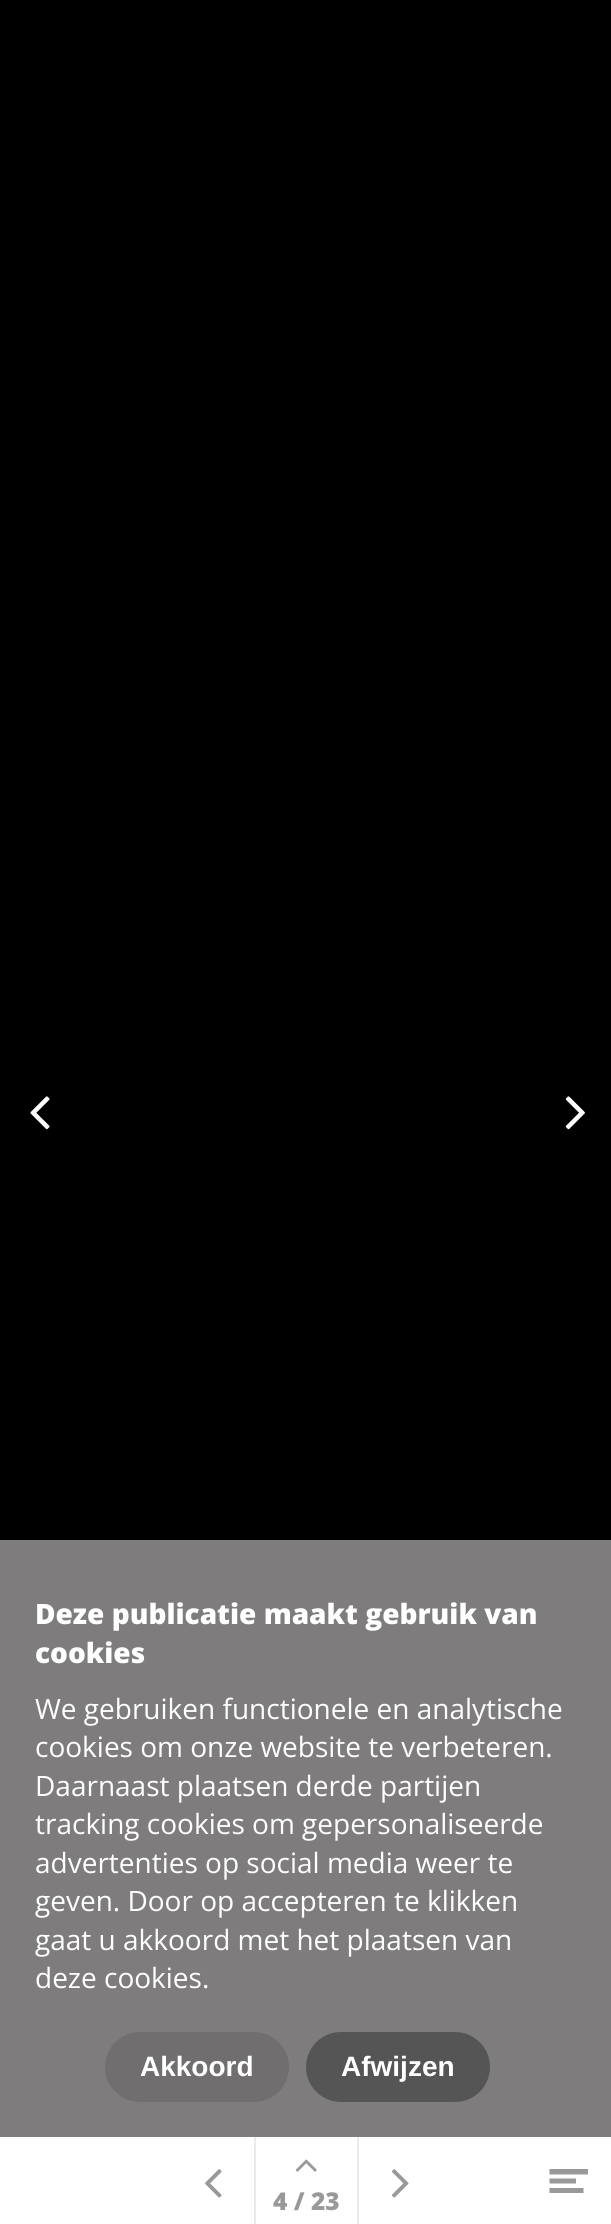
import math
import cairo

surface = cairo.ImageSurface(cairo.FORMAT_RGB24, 611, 2224)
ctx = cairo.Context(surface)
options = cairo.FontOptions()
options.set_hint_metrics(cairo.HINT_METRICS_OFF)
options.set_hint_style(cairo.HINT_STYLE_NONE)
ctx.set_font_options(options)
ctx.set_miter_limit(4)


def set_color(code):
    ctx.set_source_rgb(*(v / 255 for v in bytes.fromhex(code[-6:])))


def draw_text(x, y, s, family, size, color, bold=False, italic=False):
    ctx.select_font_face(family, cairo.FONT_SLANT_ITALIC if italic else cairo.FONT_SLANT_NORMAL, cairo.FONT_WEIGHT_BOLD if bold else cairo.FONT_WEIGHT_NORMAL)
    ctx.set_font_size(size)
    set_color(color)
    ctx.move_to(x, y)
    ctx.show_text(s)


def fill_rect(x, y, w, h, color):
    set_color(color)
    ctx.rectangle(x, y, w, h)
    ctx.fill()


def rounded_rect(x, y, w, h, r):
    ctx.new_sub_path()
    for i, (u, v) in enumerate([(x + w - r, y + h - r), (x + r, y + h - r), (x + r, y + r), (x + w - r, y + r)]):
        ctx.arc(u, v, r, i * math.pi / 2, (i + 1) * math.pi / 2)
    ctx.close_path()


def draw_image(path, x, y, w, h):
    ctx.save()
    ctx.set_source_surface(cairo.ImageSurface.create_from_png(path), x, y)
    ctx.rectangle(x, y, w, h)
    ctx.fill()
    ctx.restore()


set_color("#000000")
ctx.paint()
fill_rect(0, 1540, 611, 597, "#7e7c7c")
draw_text(35, 1624, "Deze publicatie maakt gebruik van", "Open Sans ExtraBold", 28, "#ffffff")
draw_text(35, 1663, "cookies", "Open Sans ExtraBold", 28, "#ffffff")
draw_text(35, 1719, "We gebruiken functionele en analytische", "Open Sans", 28, "#ffffff")
draw_text(35, 1757, "cookies om onze website te verbeteren.", "Open Sans", 28, "#ffffff")
draw_text(35, 1796, "Daarnaast plaatsen derde partijen", "Open Sans", 28, "#ffffff")
draw_text(35, 1834, "tracking cookies om gepersonaliseerde", "Open Sans", 28, "#ffffff")
draw_text(35, 1873, "advertenties op social media weer te", "Open Sans", 28, "#ffffff")
draw_text(35, 1911, "geven. Door op accepteren te klikken", "Open Sans", 28, "#ffffff")
draw_text(35, 1950, "gaat u akkoord met het plaatsen van", "Open Sans", 28, "#ffffff")
draw_text(35, 1988, "deze cookies.", "Open Sans", 28, "#ffffff")
set_color("#706e6e")
rounded_rect(105, 2032, 184, 70, 35)
ctx.fill()
draw_text(140, 2076, "Akkoord", "Liberation Sans", 28, "#ffffff", bold=True)
set_color("#555555")
rounded_rect(306, 2032, 184, 70, 35)
ctx.fill()
draw_text(341, 2076, "Afwijzen", "Liberation Sans", 28, "#ffffff", bold=True)
draw_image("assets/img1.png", 30, 1096, 20, 34)
draw_image("assets/img2.png", 565, 1096, 20, 34)
fill_rect(0, 2137, 611, 87, "#ffffff")
set_color("#9a9999")
ctx.new_path()
ctx.move_to(549.5, 2169)
ctx.line_to(588, 2169)
ctx.line_to(588, 2174.5)
ctx.line_to(549.5, 2174.5)
ctx.close_path()
ctx.move_to(549.5, 2178.5)
ctx.line_to(576, 2178.5)
ctx.line_to(576, 2183.5)
ctx.line_to(549.5, 2183.5)
ctx.close_path()
ctx.move_to(549.5, 2188)
ctx.line_to(583.5, 2188)
ctx.line_to(583.5, 2193)
ctx.line_to(549.5, 2193)
ctx.close_path()
ctx.fill()
draw_image("assets/img3.png", 205, 2169, 17, 29)
fill_rect(254, 2137, 2, 87, "#ebebeb")
fill_rect(357, 2137, 2, 87, "#ebebeb")
draw_image("assets/img4.png", 391, 2169, 18, 29)
draw_image("assets/img5.png", 295, 2159, 22, 13)
draw_text(273, 2210, "4 / 23", "Open Sans ExtraBold", 24.5, "#9a9999")
surface.write_to_png("output.png")
